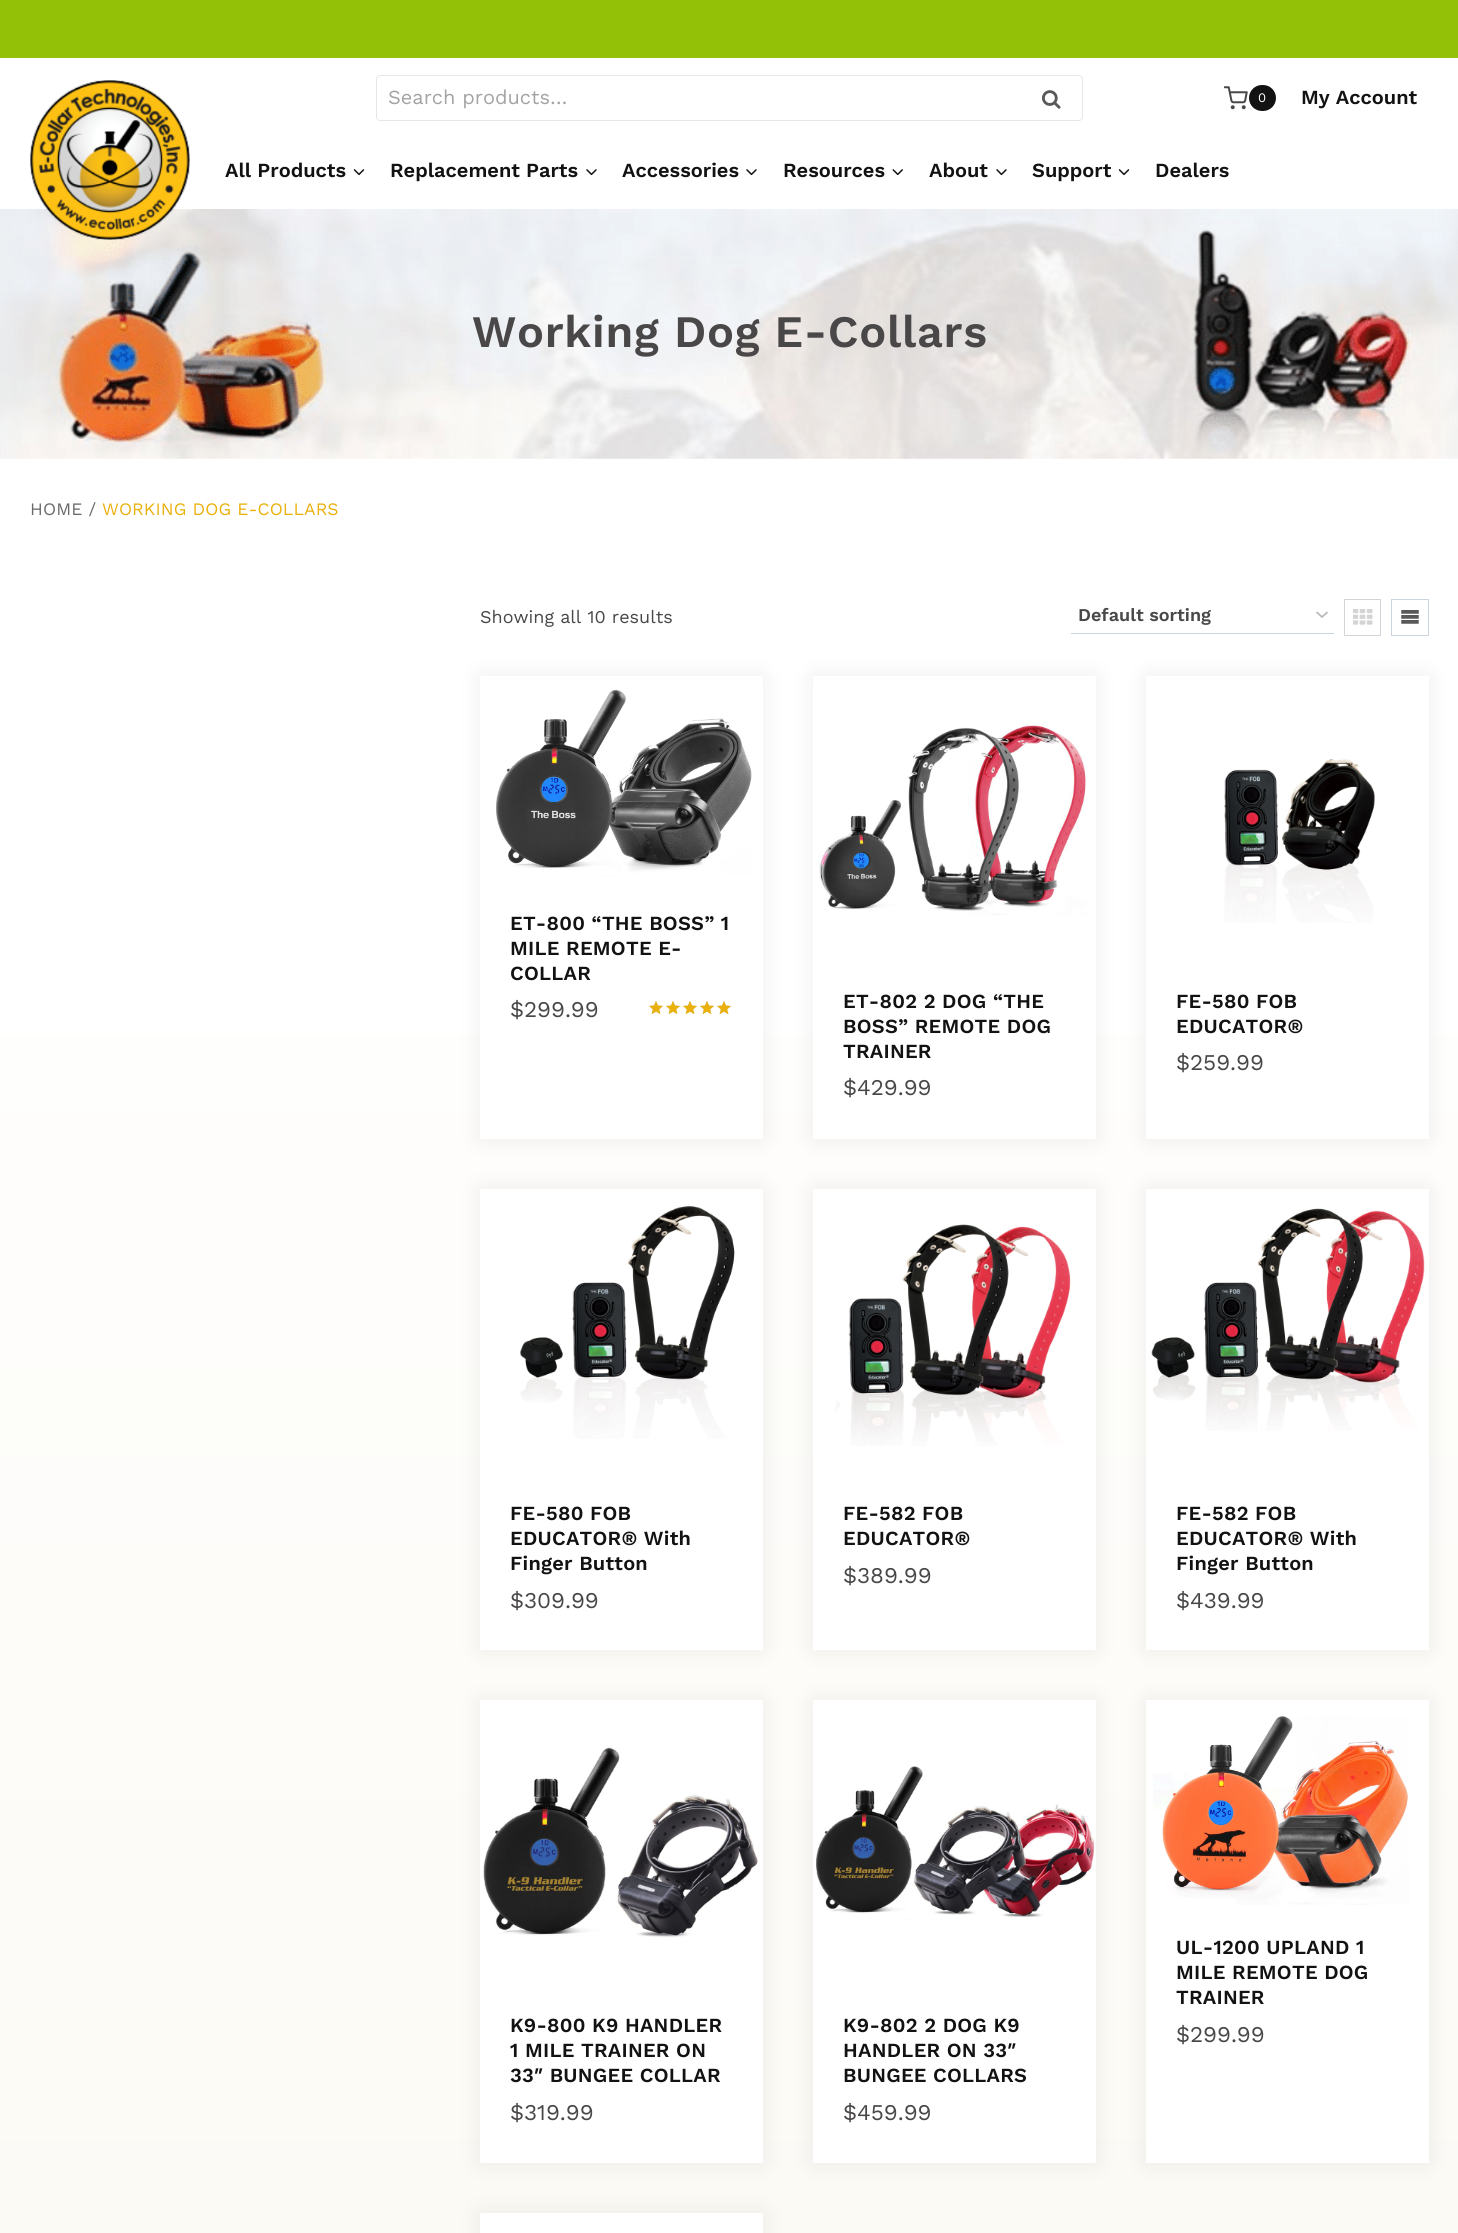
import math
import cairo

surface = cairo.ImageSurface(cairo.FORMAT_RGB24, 1458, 2233)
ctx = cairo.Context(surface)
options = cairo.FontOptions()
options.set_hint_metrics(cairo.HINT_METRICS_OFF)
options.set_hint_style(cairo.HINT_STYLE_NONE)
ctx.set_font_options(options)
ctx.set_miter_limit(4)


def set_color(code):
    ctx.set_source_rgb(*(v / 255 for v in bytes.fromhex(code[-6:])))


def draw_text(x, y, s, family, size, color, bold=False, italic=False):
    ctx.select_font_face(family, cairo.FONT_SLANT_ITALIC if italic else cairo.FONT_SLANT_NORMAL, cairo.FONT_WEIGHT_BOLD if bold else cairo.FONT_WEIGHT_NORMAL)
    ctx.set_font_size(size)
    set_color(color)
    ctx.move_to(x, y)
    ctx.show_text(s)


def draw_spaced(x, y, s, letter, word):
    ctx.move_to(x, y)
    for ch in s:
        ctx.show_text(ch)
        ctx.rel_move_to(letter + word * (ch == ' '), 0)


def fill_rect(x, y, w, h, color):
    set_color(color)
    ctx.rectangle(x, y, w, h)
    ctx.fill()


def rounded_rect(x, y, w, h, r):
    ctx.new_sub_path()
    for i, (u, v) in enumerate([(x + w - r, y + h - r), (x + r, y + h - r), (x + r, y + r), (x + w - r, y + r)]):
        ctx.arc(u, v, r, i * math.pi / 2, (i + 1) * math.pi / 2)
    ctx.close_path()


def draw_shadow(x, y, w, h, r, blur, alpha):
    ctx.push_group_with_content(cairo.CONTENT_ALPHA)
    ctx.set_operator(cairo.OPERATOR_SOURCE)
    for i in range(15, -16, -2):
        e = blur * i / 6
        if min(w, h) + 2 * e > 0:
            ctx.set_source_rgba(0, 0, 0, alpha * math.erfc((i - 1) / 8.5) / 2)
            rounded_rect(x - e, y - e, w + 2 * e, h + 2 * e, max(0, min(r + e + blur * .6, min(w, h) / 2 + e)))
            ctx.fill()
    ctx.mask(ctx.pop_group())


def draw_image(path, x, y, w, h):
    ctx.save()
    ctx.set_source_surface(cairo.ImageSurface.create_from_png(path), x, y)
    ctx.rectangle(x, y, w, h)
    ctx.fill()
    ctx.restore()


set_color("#ffffff")
ctx.paint()
fill_rect(0, 0, 1458, 58, "#93c108")
draw_image("assets/img7.png", 0, 209, 1458, 250)
draw_image("assets/img1.png", 30, 80, 160, 160)
rounded_rect(376.5, 75.5, 706, 45, 3.5)
set_color("#e7e7e7")
ctx.set_line_width(1)
ctx.stroke()
draw_text(388, 104, "Search products…", "Work Sans", 20, "#a4a3a4")
draw_image("assets/img2.png", 1042, 90, 19, 19)
draw_image("assets/img3.png", 1224, 86, 24, 24)
set_color("#121212")
rounded_rect(1249, 85, 27, 26, 13)
ctx.fill()
draw_text(1258, 102, "0", "Work Sans", 13, "#ffffff")
draw_text(1301, 104, "My Account", "Work Sans SemiBold", 20, "#121212")
draw_text(225, 177, "All Products", "Work Sans SemiBold", 20, "#121212")
draw_image("assets/img4.png", 353, 169, 12, 7)
draw_text(390, 177, "Replacement Parts", "Work Sans SemiBold", 20, "#121212")
draw_image("assets/img5.png", 586, 169, 11, 7)
draw_text(622, 177, "Accessories", "Work Sans SemiBold", 20, "#121212")
draw_image("assets/img5.png", 746, 169, 11, 7)
draw_text(783, 177, "Resources", "Work Sans SemiBold", 20, "#121212")
draw_image("assets/img6.png", 892, 169, 11, 7)
draw_text(929, 177, "About", "Work Sans SemiBold", 20, "#121212")
draw_image("assets/img5.png", 996, 169, 11, 7)
draw_text(1032, 177, "Support", "Work Sans SemiBold", 20, "#121212")
draw_image("assets/img4.png", 1118, 169, 12, 7)
draw_text(1155, 177, "Dealers", "Work Sans SemiBold", 20, "#121212")
ctx.set_font_size(45)
set_color("#494748")
draw_spaced(472, 347, "Working Dog E-Collars", 0.7, 0)
ctx.select_font_face("Work Sans")
ctx.set_font_size(17.5)
set_color("#6c696b")
draw_spaced(30, 515, "HOME /", 0.1, 0)
set_color("#eab00c")
draw_spaced(102, 515, "WORKING DOG E-COLLARS", 0.1, 0)
gradient = cairo.LinearGradient(729, 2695, 729, 599)
gradient.add_color_stop_rgba(0, 0.984, 0.976, 0.949, 1)
gradient.add_color_stop_rgba(0.5, 0.992, 0.988, 0.976, 1)
gradient.add_color_stop_rgba(1, 1, 1, 1, 1)
ctx.set_source(gradient)
ctx.rectangle(0, 1036, 1458, 1197)
ctx.fill()
draw_text(480, 623, "Showing all 10 results", "Work Sans", 18, "#494748")
ctx.new_path()
ctx.move_to(1316.5, 612)
ctx.line_to(1322, 617)
ctx.line_to(1327.5, 612)
set_color("#bbbbbb")
ctx.set_line_width(1.8)
ctx.stroke()
fill_rect(1071, 633, 263, 1, "#cbd5e0")
draw_text(1078, 621, "Default sorting", "Work Sans SemiBold", 18, "#494748")
ctx.rectangle(1344.5, 599.5, 36, 36)
set_color("#d4d4d4")
ctx.set_line_width(1)
ctx.stroke()
draw_image("assets/img8.png", 1353, 609, 20, 16)
ctx.rectangle(1391.5, 599.5, 37, 36)
set_color("#cbd5e0")
ctx.stroke()
draw_image("assets/img9.png", 1401, 610, 18, 14)
set_color("#000000")
draw_shadow(480, 676, 283, 463, 0, 12.5, 0.07)
fill_rect(480, 676, 283, 463, "#ffffff")
draw_image("assets/img10.png", 496, 689, 256, 187)
ctx.set_font_size(20)
set_color("#121212")
draw_spaced(510, 930, "ET-800 “THE BOSS” 1", 0.25, 0)
draw_spaced(510, 955, "MILE REMOTE E-", 0.25, 0)
draw_spaced(510, 980, "COLLAR", 0.25, 0)
draw_text(510, 1017, "$299.99", "Work Sans", 22.5, "#494748")
draw_image("assets/img11.png", 649, 1001, 82, 13)
draw_image("assets/img12.png", 649, 1001, 82, 14)
set_color("#000000")
draw_shadow(813, 676, 283, 463, 0, 12.5, 0.07)
fill_rect(813, 676, 283, 463, "#ffffff")
draw_image("assets/img13.png", 818, 722, 269, 193)
ctx.select_font_face("Work Sans SemiBold")
ctx.set_font_size(20)
set_color("#121212")
draw_spaced(843, 1008, "ET-802 2 DOG “THE", 0.25, 0)
draw_spaced(843, 1033, "BOSS” REMOTE DOG", 0.25, 0)
draw_spaced(843, 1058, "TRAINER", 0.25, 0)
draw_text(843, 1095, "$429.99", "Work Sans", 22.5, "#494748")
set_color("#000000")
draw_shadow(1146, 676, 283, 463, 0, 12.5, 0.07)
fill_rect(1146, 676, 283, 463, "#ffffff")
draw_image("assets/img14.png", 1224, 759, 151, 164)
ctx.select_font_face("Work Sans SemiBold")
ctx.set_font_size(20)
set_color("#121212")
draw_spaced(1176, 1008, "FE-580 FOB", 0.25, 0)
draw_spaced(1176, 1033, "EDUCATOR®", 0.25, 0)
draw_text(1176, 1070, "$259.99", "Work Sans", 22.5, "#494748")
set_color("#000000")
draw_shadow(480, 1189, 283, 461, 0, 12.5, 0.07)
fill_rect(480, 1189, 283, 461, "#ffffff")
draw_image("assets/img15.png", 520, 1206, 215, 233)
ctx.select_font_face("Work Sans SemiBold")
ctx.set_font_size(20)
set_color("#121212")
draw_spaced(510, 1520, "FE-580 FOB", 0.25, 0)
draw_spaced(510, 1545, "EDUCATOR® With", 0.25, 0)
draw_spaced(510, 1570, "Finger Button", 0.25, 0)
draw_text(510, 1608, "$309.99", "Work Sans", 22.5, "#494748")
set_color("#000000")
draw_shadow(813, 1189, 283, 461, 0, 12.5, 0.07)
fill_rect(813, 1189, 283, 461, "#ffffff")
draw_image("assets/img16.png", 835, 1224, 236, 222)
ctx.select_font_face("Work Sans SemiBold")
ctx.set_font_size(20)
set_color("#121212")
draw_spaced(843, 1520, "FE-582 FOB", 0.25, 0)
draw_spaced(843, 1545, "EDUCATOR®", 0.25, 0)
draw_text(843, 1583, "$389.99", "Work Sans", 22.5, "#494748")
set_color("#000000")
draw_shadow(1146, 1189, 283, 461, 0, 12.5, 0.07)
fill_rect(1146, 1189, 283, 461, "#ffffff")
draw_image("assets/img17.png", 1151, 1208, 274, 223)
ctx.select_font_face("Work Sans SemiBold")
ctx.set_font_size(20)
set_color("#121212")
draw_spaced(1176, 1520, "FE-582 FOB", 0.25, 0)
draw_spaced(1176, 1545, "EDUCATOR® With", 0.25, 0)
draw_spaced(1176, 1570, "Finger Button", 0.25, 0)
draw_text(1176, 1608, "$439.99", "Work Sans", 22.5, "#494748")
set_color("#000000")
draw_shadow(1146, 1700, 283, 463, 0, 12.5, 0.07)
fill_rect(1146, 1700, 283, 463, "#ffffff")
draw_image("assets/img18.png", 1153, 1716, 256, 189)
ctx.select_font_face("Work Sans SemiBold")
ctx.set_font_size(20)
set_color("#121212")
draw_spaced(1176, 1954, "UL-1200 UPLAND 1", 0.25, 0)
draw_spaced(1176, 1979, "MILE REMOTE DOG", 0.25, 0)
draw_spaced(1176, 2004, "TRAINER", 0.25, 0)
draw_text(1176, 2042, "$299.99", "Work Sans", 22.5, "#494748")
set_color("#000000")
draw_shadow(480, 1700, 283, 463, 0, 12.5, 0.07)
fill_rect(480, 1700, 283, 463, "#ffffff")
draw_image("assets/img19.png", 483, 1747, 275, 191)
ctx.select_font_face("Work Sans SemiBold")
ctx.set_font_size(20)
set_color("#121212")
draw_spaced(510, 2032, "K9-800 K9 HANDLER", 0.25, 0)
draw_spaced(510, 2057, "1 MILE TRAINER ON", 0.25, 0)
draw_spaced(510, 2082, "33″ BUNGEE COLLAR", 0.25, 0)
draw_text(510, 2120, "$319.99", "Work Sans", 22.5, "#494748")
set_color("#000000")
draw_shadow(813, 1700, 283, 463, 0, 12.5, 0.07)
fill_rect(813, 1700, 283, 463, "#ffffff")
draw_image("assets/img20.png", 816, 1766, 280, 154)
ctx.select_font_face("Work Sans SemiBold")
ctx.set_font_size(20)
set_color("#121212")
draw_spaced(843, 2032, "K9-802 2 DOG K9", 0.25, 0)
draw_spaced(843, 2057, "HANDLER ON 33″", 0.25, 0)
draw_spaced(843, 2082, "BUNGEE COLLARS", 0.25, 0)
draw_text(843, 2120, "$459.99", "Work Sans", 22.5, "#494748")
set_color("#000000")
draw_shadow(480, 2213, 283, 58, 0, 12.5, 0.07)
fill_rect(480, 2213, 283, 20, "#ffffff")
surface.write_to_png("output.png")
